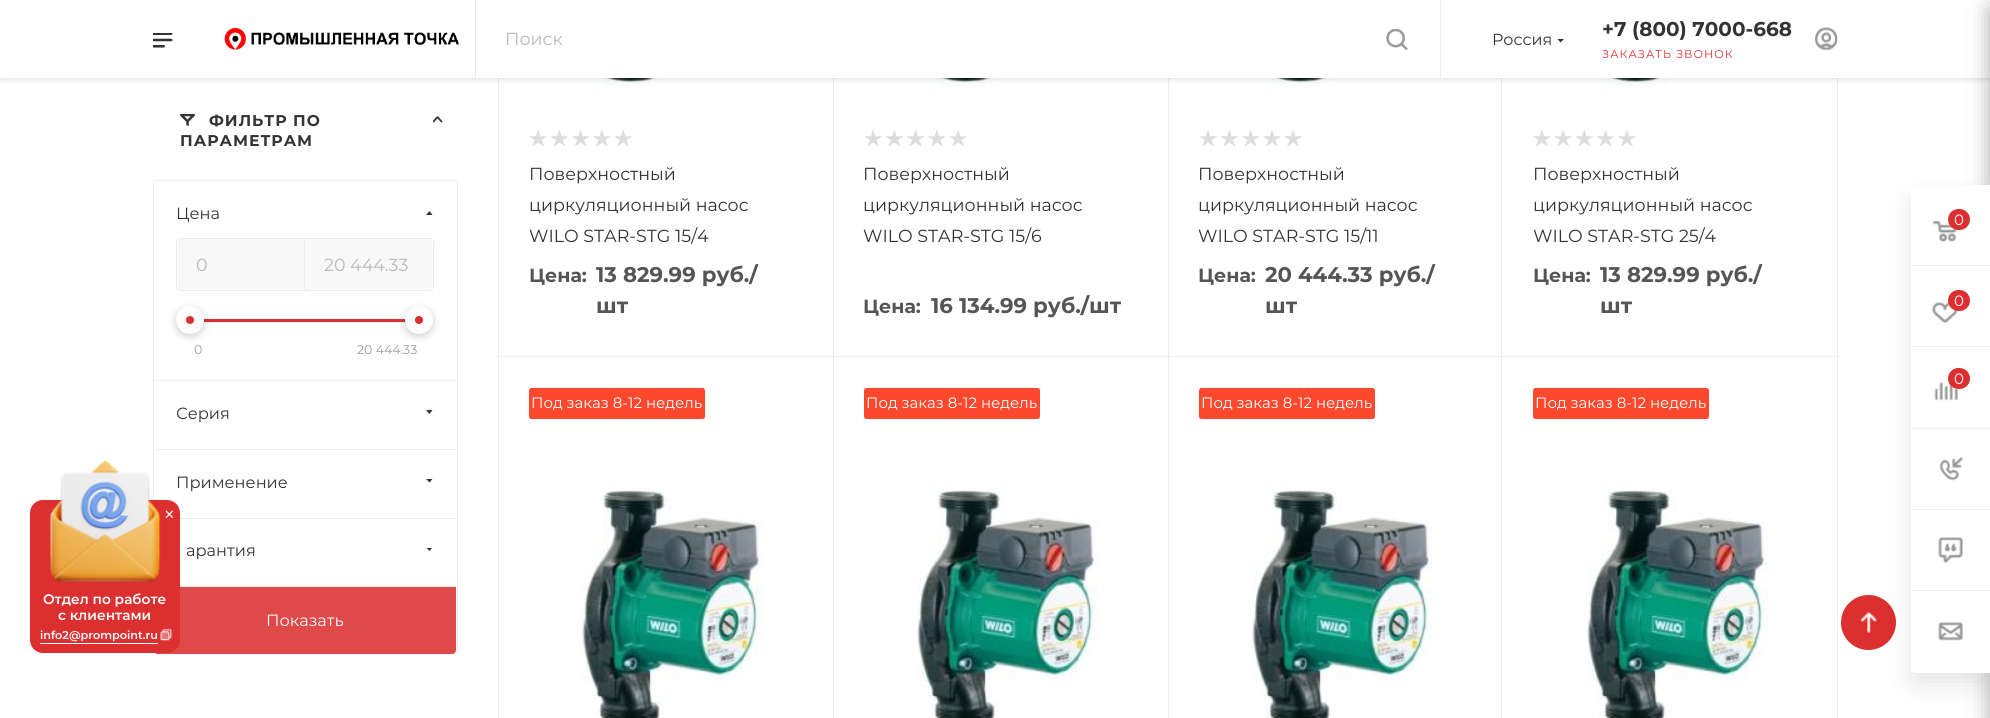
import math
import cairo

surface = cairo.ImageSurface(cairo.FORMAT_RGB24, 1990, 718)
ctx = cairo.Context(surface)
options = cairo.FontOptions()
options.set_hint_metrics(cairo.HINT_METRICS_OFF)
options.set_hint_style(cairo.HINT_STYLE_NONE)
ctx.set_font_options(options)
ctx.set_miter_limit(4)


def set_color(code):
    ctx.set_source_rgb(*(v / 255 for v in bytes.fromhex(code[-6:])))


def draw_text(x, y, s, family, size, color, bold=False, italic=False):
    ctx.select_font_face(family, cairo.FONT_SLANT_ITALIC if italic else cairo.FONT_SLANT_NORMAL, cairo.FONT_WEIGHT_BOLD if bold else cairo.FONT_WEIGHT_NORMAL)
    ctx.set_font_size(size)
    set_color(color)
    ctx.move_to(x, y)
    ctx.show_text(s)


def draw_spaced(x, y, s, letter, word):
    ctx.move_to(x, y)
    for ch in s:
        ctx.show_text(ch)
        ctx.rel_move_to(letter + word * (ch == ' '), 0)


def fill_rect(x, y, w, h, color):
    set_color(color)
    ctx.rectangle(x, y, w, h)
    ctx.fill()


def rounded_rect(x, y, w, h, r):
    ctx.new_sub_path()
    for i, (u, v) in enumerate([(x + w - r, y + h - r), (x + r, y + h - r), (x + r, y + r), (x + w - r, y + r)]):
        ctx.arc(u, v, r, i * math.pi / 2, (i + 1) * math.pi / 2)
    ctx.close_path()


def draw_shadow(x, y, w, h, r, blur, alpha):
    ctx.push_group_with_content(cairo.CONTENT_ALPHA)
    ctx.set_operator(cairo.OPERATOR_SOURCE)
    for i in range(15, -16, -2):
        e = blur * i / 6
        if min(w, h) + 2 * e > 0:
            ctx.set_source_rgba(0, 0, 0, alpha * math.erfc((i - 1) / 8.5) / 2)
            rounded_rect(x - e, y - e, w + 2 * e, h + 2 * e, max(0, min(r + e + blur * .6, min(w, h) / 2 + e)))
            ctx.fill()
    ctx.mask(ctx.pop_group())


def draw_image(path, x, y, w, h):
    ctx.save()
    ctx.set_source_surface(cairo.ImageSurface.create_from_png(path), x, y)
    ctx.rectangle(x, y, w, h)
    ctx.fill()
    ctx.restore()


set_color("#ffffff")
ctx.paint()
ctx.rectangle(498.5, -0.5, 335, 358)
set_color("#ececec")
ctx.set_line_width(1)
ctx.stroke()
draw_image("assets/img7.png", 583, 78, 180, 9)
ctx.rectangle(833.5, -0.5, 335, 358)
ctx.stroke()
draw_image("assets/img12.png", 918, 78, 180, 9)
ctx.rectangle(1168.5, -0.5, 334, 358)
ctx.stroke()
draw_image("assets/img13.png", 1253, 78, 180, 9)
fill_rect(1502, 78, 1, 278, "#ffffff")
ctx.rectangle(1501.5, -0.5, 336, 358)
set_color("#ececec")
ctx.stroke()
draw_image("assets/img12.png", 1588, 78, 180, 9)
set_color("#000000")
draw_shadow(0, 1, 1990, 78, 0, 3, 0.14)
fill_rect(0, 0, 1990, 78, "#ffffff")
draw_image("assets/img1.png", 153, 33, 20, 15)
draw_image("assets/img2.png", 224, 27, 235, 23)
fill_rect(1440, 0, 1, 78, "#ececec")
fill_rect(475, 0, 1, 78, "#ececec")
draw_text(505, 45, "Поиск", "Montserrat", 17.5, "#b8b8b8")
draw_image("assets/img3.png", 1386, 29, 22, 21)
draw_text(1492, 45, "Россия", "Montserrat", 16, "#333333")
ctx.set_fill_rule(cairo.FILL_RULE_EVEN_ODD)
ctx.new_path()
ctx.move_to(1557.5, 39)
ctx.line_to(1564, 39)
ctx.line_to(1560.5, 42.5)
ctx.close_path()
ctx.fill()
draw_text(1602, 36, "+7 (800) 7000-668", "Montserrat", 20, "#333333", bold=True)
ctx.select_font_face("Montserrat")
ctx.set_font_size(11.25)
set_color("#dc2f2f")
draw_spaced(1602, 58, "ЗАКАЗАТЬ ЗВОНОК", 1, 0)
draw_image("assets/img4.png", 1815, 27, 23, 24)
draw_image("assets/img5.png", 180, 114, 15, 12)
ctx.select_font_face("Montserrat", cairo.FONT_SLANT_NORMAL, cairo.FONT_WEIGHT_BOLD)
ctx.set_font_size(15.6)
set_color("#333333")
draw_spaced(209, 126, "ФИЛЬТР ПО", 1, 0)
draw_image("assets/img6.png", 433, 116, 10, 7)
draw_spaced(180, 146, "ПАРАМЕТРАМ", 1, 0)
rounded_rect(153.5, 180.5, 304, 473, 3.5)
set_color("#ececec")
ctx.stroke()
fill_rect(154, 380, 302, 1, "#ececec")
draw_text(176, 219, "Цена", "Montserrat", 16.25, "#333333")
ctx.new_path()
ctx.move_to(432.5, 215)
ctx.line_to(426, 215)
ctx.line_to(429.5, 211)
ctx.close_path()
ctx.fill()
rounded_rect(176.5, 238.5, 257, 52, 3.5)
set_color("#ececec")
ctx.stroke()
fill_rect(178, 239, 126, 51, "#f8f8f8")
fill_rect(304, 239, 1, 51, "#ececec")
draw_text(196, 271, "0", "Montserrat", 17.5, "#b8b8b8")
fill_rect(305, 239, 128, 51, "#f8f8f8")
draw_text(324, 271, "20 444.33", "Montserrat", 17.5, "#b8b8b8")
fill_rect(203, 319, 203, 3, "#dc2f2f")
fill_rect(203, 322, 203, 1, "#f2f2f2")
set_color("#000000")
draw_shadow(176, 309, 28, 27, 13.5, 4, 0.2)
set_color("#ffffff")
ctx.arc(190, 320, 14, 0, 2 * math.pi)
ctx.fill()
set_color("#dc2f2f")
ctx.arc(190, 320, 4, 0, 2 * math.pi)
ctx.fill()
set_color("#000000")
draw_shadow(405, 309, 28, 27, 13.5, 4, 0.2)
set_color("#ffffff")
ctx.arc(419, 320, 14, 0, 2 * math.pi)
ctx.fill()
set_color("#dc2f2f")
ctx.arc(419, 320, 4, 0, 2 * math.pi)
ctx.fill()
draw_text(194, 354, "0", "Montserrat", 12.5, "#999999")
draw_text(357, 354, "20 444.33", "Montserrat", 12.5, "#999999")
fill_rect(154, 449, 302, 1, "#ececec")
draw_text(176, 419, "Серия", "Montserrat", 16.25, "#333333")
ctx.new_path()
ctx.move_to(426, 410)
ctx.line_to(432.5, 410)
ctx.line_to(429.5, 414)
ctx.close_path()
ctx.fill()
fill_rect(180, 518, 276, 1, "#ececec")
draw_text(176, 488, "Применение", "Montserrat", 16.25, "#333333")
ctx.new_path()
ctx.move_to(426, 479)
ctx.line_to(432.5, 479)
ctx.line_to(429.5, 482.5)
ctx.close_path()
ctx.fill()
fill_rect(454, 650, 2, 3, "#fafafa")
set_color("#e04949")
ctx.new_path()
ctx.move_to(154.5, 586.5)
ctx.line_to(455.5, 586.5)
ctx.line_to(455.5, 650)
ctx.curve_to(455.5, 652, 454, 653.5, 452, 653.5)
ctx.line_to(158, 653.5)
ctx.curve_to(156, 653.5, 154.5, 652, 154.5, 650)
ctx.close_path()
ctx.fill_preserve()
ctx.stroke()
fill_rect(180, 586, 276, 1, "#ececec")
draw_text(186, 556, "арантия", "Montserrat", 16.25, "#333333")
ctx.save()
ctx.set_fill_rule(cairo.FILL_RULE_WINDING)
ctx.rectangle(426, 548, 7, 4)
ctx.clip()
ctx.set_fill_rule(cairo.FILL_RULE_EVEN_ODD)
ctx.new_path()
ctx.move_to(426, 547.5)
ctx.line_to(432.5, 547.5)
ctx.line_to(429.5, 551)
ctx.close_path()
ctx.fill()
ctx.restore()
draw_text(266, 626, "Показать", "Montserrat", 16.25, "#ffffff")
draw_image("assets/img8.png", 529, 130, 18, 16)
draw_image("assets/img9.png", 550, 130, 18, 16)
draw_image("assets/img10.png", 572, 130, 18, 16)
draw_image("assets/img11.png", 593, 130, 18, 16)
draw_image("assets/img8.png", 614, 130, 18, 16)
draw_text(529, 180, "Поверхностный", "Montserrat", 17.5, "#333333")
draw_text(529, 211, "циркуляционный насос", "Montserrat", 17.5, "#333333")
draw_text(529, 242, "WILO STAR-STG 15/4", "Montserrat", 17.5, "#333333")
draw_text(529, 282, "Цена:", "Montserrat", 19, "#555555", bold=True)
draw_text(596, 282, "13 829.99 руб./", "Montserrat", 21.25, "#555555", bold=True)
draw_text(596, 313, "шт", "Montserrat", 21.25, "#555555", bold=True)
draw_image("assets/img8.png", 864, 130, 18, 16)
draw_image("assets/img9.png", 885, 130, 18, 16)
draw_image("assets/img10.png", 907, 130, 18, 16)
draw_image("assets/img11.png", 928, 130, 18, 16)
draw_image("assets/img8.png", 949, 130, 18, 16)
draw_text(863, 180, "Поверхностный", "Montserrat", 17.5, "#333333")
draw_text(863, 211, "циркуляционный насос", "Montserrat", 17.5, "#333333")
draw_text(863, 242, "WILO STAR-STG 15/6", "Montserrat", 17.5, "#333333")
draw_text(863, 313, "Цена:", "Montserrat", 19, "#555555", bold=True)
draw_text(931, 313, "16 134.99 руб./шт", "Montserrat", 21.25, "#555555", bold=True)
draw_image("assets/img8.png", 1199, 130, 18, 16)
draw_image("assets/img9.png", 1220, 130, 18, 16)
draw_image("assets/img10.png", 1242, 130, 18, 16)
draw_image("assets/img11.png", 1263, 130, 18, 16)
draw_image("assets/img8.png", 1284, 130, 18, 16)
draw_text(1198, 180, "Поверхностный", "Montserrat", 17.5, "#333333")
draw_text(1198, 211, "циркуляционный насос", "Montserrat", 17.5, "#333333")
draw_text(1198, 242, "WILO STAR-STG 15/11", "Montserrat", 17.5, "#333333")
draw_text(1198, 282, "Цена:", "Montserrat", 19, "#555555", bold=True)
draw_text(1265, 282, "20 444.33 руб./", "Montserrat", 21.25, "#555555", bold=True)
draw_text(1265, 313, "шт", "Montserrat", 21.25, "#555555", bold=True)
draw_image("assets/img11.png", 1533, 130, 18, 16)
draw_image("assets/img8.png", 1554, 130, 18, 16)
draw_image("assets/img9.png", 1575, 130, 18, 16)
draw_image("assets/img10.png", 1597, 130, 18, 16)
draw_image("assets/img11.png", 1618, 130, 18, 16)
draw_text(1533, 180, "Поверхностный", "Montserrat", 17.5, "#333333")
draw_text(1533, 211, "циркуляционный насос", "Montserrat", 17.5, "#333333")
draw_text(1533, 242, "WILO STAR-STG 25/4", "Montserrat", 17.5, "#333333")
draw_text(1533, 282, "Цена:", "Montserrat", 19, "#555555", bold=True)
draw_text(1600, 282, "13 829.99 руб./", "Montserrat", 21.25, "#555555", bold=True)
draw_text(1600, 313, "шт", "Montserrat", 21.25, "#555555", bold=True)
fill_rect(499, 357, 334, 1, "#ffffff")
ctx.rectangle(498.5, 356.5, 335, 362)
set_color("#ececec")
ctx.stroke()
set_color("#fc482d")
rounded_rect(529, 388, 176, 31, 2.5)
ctx.fill()
draw_text(531, 408, "Под заказ 8-12 недель", "Montserrat", 15, "#ffffff")
draw_image("assets/img14.png", 582, 490, 181, 228)
fill_rect(834, 357, 334, 1, "#ffffff")
ctx.rectangle(833.5, 356.5, 335, 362)
set_color("#ececec")
ctx.stroke()
set_color("#fc482d")
rounded_rect(864, 388, 176, 31, 2.5)
ctx.fill()
draw_text(866, 408, "Под заказ 8-12 недель", "Montserrat", 15, "#ffffff")
draw_image("assets/img15.png", 917, 490, 181, 228)
fill_rect(1169, 357, 332, 1, "#ffffff")
ctx.rectangle(1168.5, 356.5, 334, 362)
set_color("#ececec")
ctx.stroke()
set_color("#fc482d")
rounded_rect(1199, 388, 176, 31, 2.5)
ctx.fill()
draw_text(1201, 408, "Под заказ 8-12 недель", "Montserrat", 15, "#ffffff")
draw_image("assets/img16.png", 1252, 490, 181, 228)
ctx.rectangle(1501.5, 356.5, 336, 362)
ctx.fill_preserve()
set_color("#ececec")
ctx.stroke()
set_color("#fc482d")
rounded_rect(1533, 388, 176, 31, 2.5)
ctx.fill()
draw_text(1535, 408, "Под заказ 8-12 недель", "Montserrat", 15, "#ffffff")
draw_image("assets/img17.png", 1587, 490, 181, 228)
set_color("#2c2c2c")
draw_shadow(1990, 8, 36, 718, 2.5, 11, 0.4)
set_color("#dc2f2f")
ctx.arc(1868.5, 622.5, 27.5, 0, 2 * math.pi)
ctx.fill()
draw_image("assets/img26.png", 1861, 612, 16, 21)
set_color("#000000")
draw_shadow(1911, 198, 79, 487, 5, 12.5, 0.1)
set_color("#ffffff")
ctx.new_path()
ctx.move_to(1916, 185)
ctx.line_to(1990, 185)
ctx.line_to(1990, 673)
ctx.line_to(1916, 673)
ctx.curve_to(1913, 673, 1911, 671, 1911, 668)
ctx.line_to(1911, 190)
ctx.curve_to(1911, 187, 1913, 185, 1916, 185)
ctx.close_path()
ctx.fill()
fill_rect(1911, 265, 79, 1, "#ececec")
draw_image("assets/img18.png", 1932, 221, 25, 21)
set_color("#dc2f2f")
rounded_rect(1948, 209, 22, 21, 10.5)
ctx.fill()
draw_text(1954, 225, "0", "Montserrat", 15, "#ffffff")
fill_rect(1911, 346, 79, 1, "#ececec")
draw_image("assets/img19.png", 1932, 302, 26, 21)
set_color("#dc2f2f")
rounded_rect(1948, 290, 22, 21, 10.5)
ctx.fill()
draw_text(1954, 306, "0", "Montserrat", 15, "#ffffff")
fill_rect(1911, 428, 79, 1, "#ececec")
draw_image("assets/img20.png", 1934, 382, 24, 19)
set_color("#dc2f2f")
rounded_rect(1948, 368, 22, 21, 10.5)
ctx.fill()
draw_text(1954, 384, "0", "Montserrat", 15, "#ffffff")
fill_rect(1911, 509, 79, 1, "#ececec")
draw_image("assets/img21.png", 1939, 457, 24, 24)
fill_rect(1911, 590, 79, 1, "#ececec")
draw_image("assets/img22.png", 1938, 537, 25, 26)
draw_image("assets/img23.png", 1938, 622, 25, 19)
set_color("#dc2f2f")
rounded_rect(30, 500, 150, 153, 13)
ctx.fill()
draw_text(163, 522, "×", "Montserrat", 22, "#ffffff")
draw_image("assets/img24.png", 50, 460, 111, 123)
draw_text(43, 604, "Отдел по работе", "Montserrat SemiBold", 13.75, "#ffffff")
draw_text(58, 620, "с клиентами", "Montserrat SemiBold", 13.75, "#ffffff")
draw_text(40, 639, "info2@prompoint.ru", "Montserrat SemiBold", 11.25, "#ffffff")
fill_rect(40, 643, 118, 1, "#ffffff")
draw_image("assets/img25.png", 160, 629, 13, 12)
surface.write_to_png("output.png")
